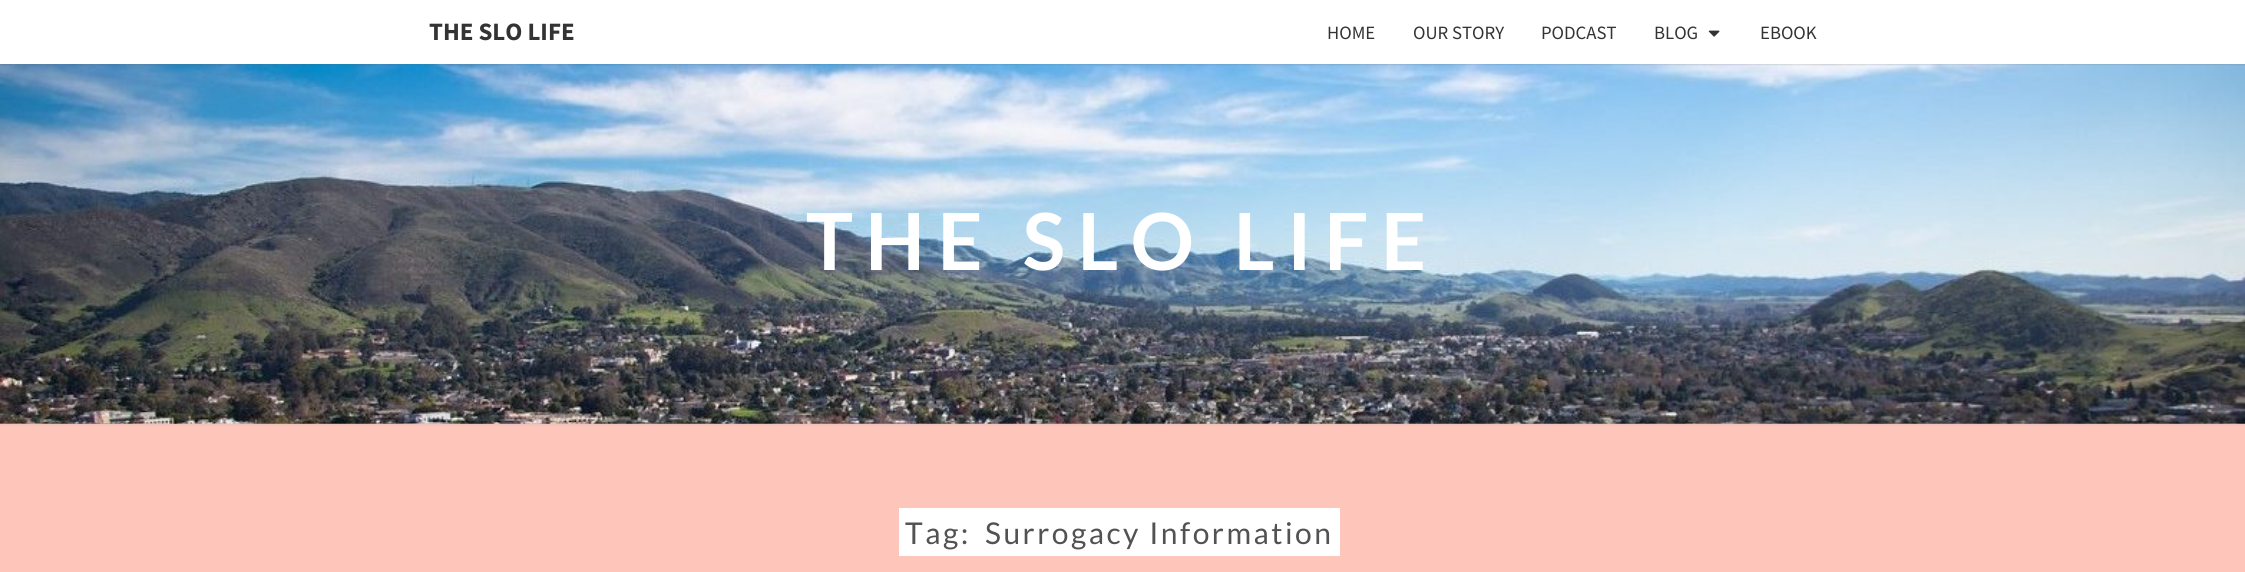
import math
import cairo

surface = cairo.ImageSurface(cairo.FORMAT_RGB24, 2245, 572)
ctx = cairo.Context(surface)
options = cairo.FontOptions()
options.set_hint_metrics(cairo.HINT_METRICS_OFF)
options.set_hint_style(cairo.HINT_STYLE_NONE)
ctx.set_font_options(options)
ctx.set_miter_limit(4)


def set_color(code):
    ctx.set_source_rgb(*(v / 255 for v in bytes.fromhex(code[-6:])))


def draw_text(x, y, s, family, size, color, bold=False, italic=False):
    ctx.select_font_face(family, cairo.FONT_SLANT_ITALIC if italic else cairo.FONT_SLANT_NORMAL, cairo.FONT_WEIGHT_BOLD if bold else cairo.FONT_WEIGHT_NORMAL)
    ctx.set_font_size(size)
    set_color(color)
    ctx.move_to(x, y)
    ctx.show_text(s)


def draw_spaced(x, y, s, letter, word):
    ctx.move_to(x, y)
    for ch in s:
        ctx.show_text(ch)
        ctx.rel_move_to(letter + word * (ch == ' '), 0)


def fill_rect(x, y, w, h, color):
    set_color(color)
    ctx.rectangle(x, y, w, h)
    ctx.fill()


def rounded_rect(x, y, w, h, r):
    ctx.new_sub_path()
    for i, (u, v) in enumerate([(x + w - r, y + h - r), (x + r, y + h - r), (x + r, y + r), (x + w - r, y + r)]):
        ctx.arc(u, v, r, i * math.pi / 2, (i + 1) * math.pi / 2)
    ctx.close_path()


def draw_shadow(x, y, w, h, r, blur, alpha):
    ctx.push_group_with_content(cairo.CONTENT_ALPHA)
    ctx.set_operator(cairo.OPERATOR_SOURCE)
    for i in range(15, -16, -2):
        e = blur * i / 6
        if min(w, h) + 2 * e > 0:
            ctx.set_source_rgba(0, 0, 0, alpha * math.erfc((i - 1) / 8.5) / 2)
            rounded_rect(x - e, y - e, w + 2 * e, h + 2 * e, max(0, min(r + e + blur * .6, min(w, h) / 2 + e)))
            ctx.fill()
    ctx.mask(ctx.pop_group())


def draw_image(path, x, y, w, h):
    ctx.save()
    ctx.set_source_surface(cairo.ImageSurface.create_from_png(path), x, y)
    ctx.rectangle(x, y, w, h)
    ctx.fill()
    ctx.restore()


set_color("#fec5bb")
ctx.paint()
set_color("#b6b6b6")
draw_shadow(-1, 63, 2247, 362, 0, 1, 0.3)
draw_image("assets/img2.png", 0, 64, 2245, 360)
set_color("#646464")
draw_shadow(0, 1, 2245, 64, 0, 0.5, 0.2)
fill_rect(0, 0, 2245, 64, "#ffffff")
draw_text(429, 40, "THE SLO LIFE", "Source Sans Pro", 25, "#333333", bold=True)
draw_text(1327, 39, "HOME", "Source Sans Pro", 18.75, "#333333")
draw_text(1413, 39, "OUR STORY", "Source Sans Pro", 18.75, "#333333")
draw_text(1541, 39, "PODCAST", "Source Sans Pro", 18.75, "#333333")
draw_text(1654, 39, "BLOG", "Source Sans Pro", 18.75, "#333333")
draw_image("assets/img1.png", 1708, 30, 12, 7)
draw_text(1760, 39, "EBOOK", "Source Sans Pro", 18.75, "#333333")
ctx.select_font_face("Lato", cairo.FONT_SLANT_NORMAL, cairo.FONT_WEIGHT_BOLD)
ctx.set_font_size(78.75)
set_color("#ffffff")
draw_spaced(806, 270, "THE SLO LIFE", 12.5, 0)
fill_rect(899, 508, 441, 48, "#ffffff")
ctx.select_font_face("Lato")
ctx.set_font_size(30)
set_color("#525252")
draw_spaced(905, 544, "Tag:", 2.5, 0)
draw_spaced(985, 544, "Surrogacy Information", 2.5, 0)
surface.write_to_png("output.png")
